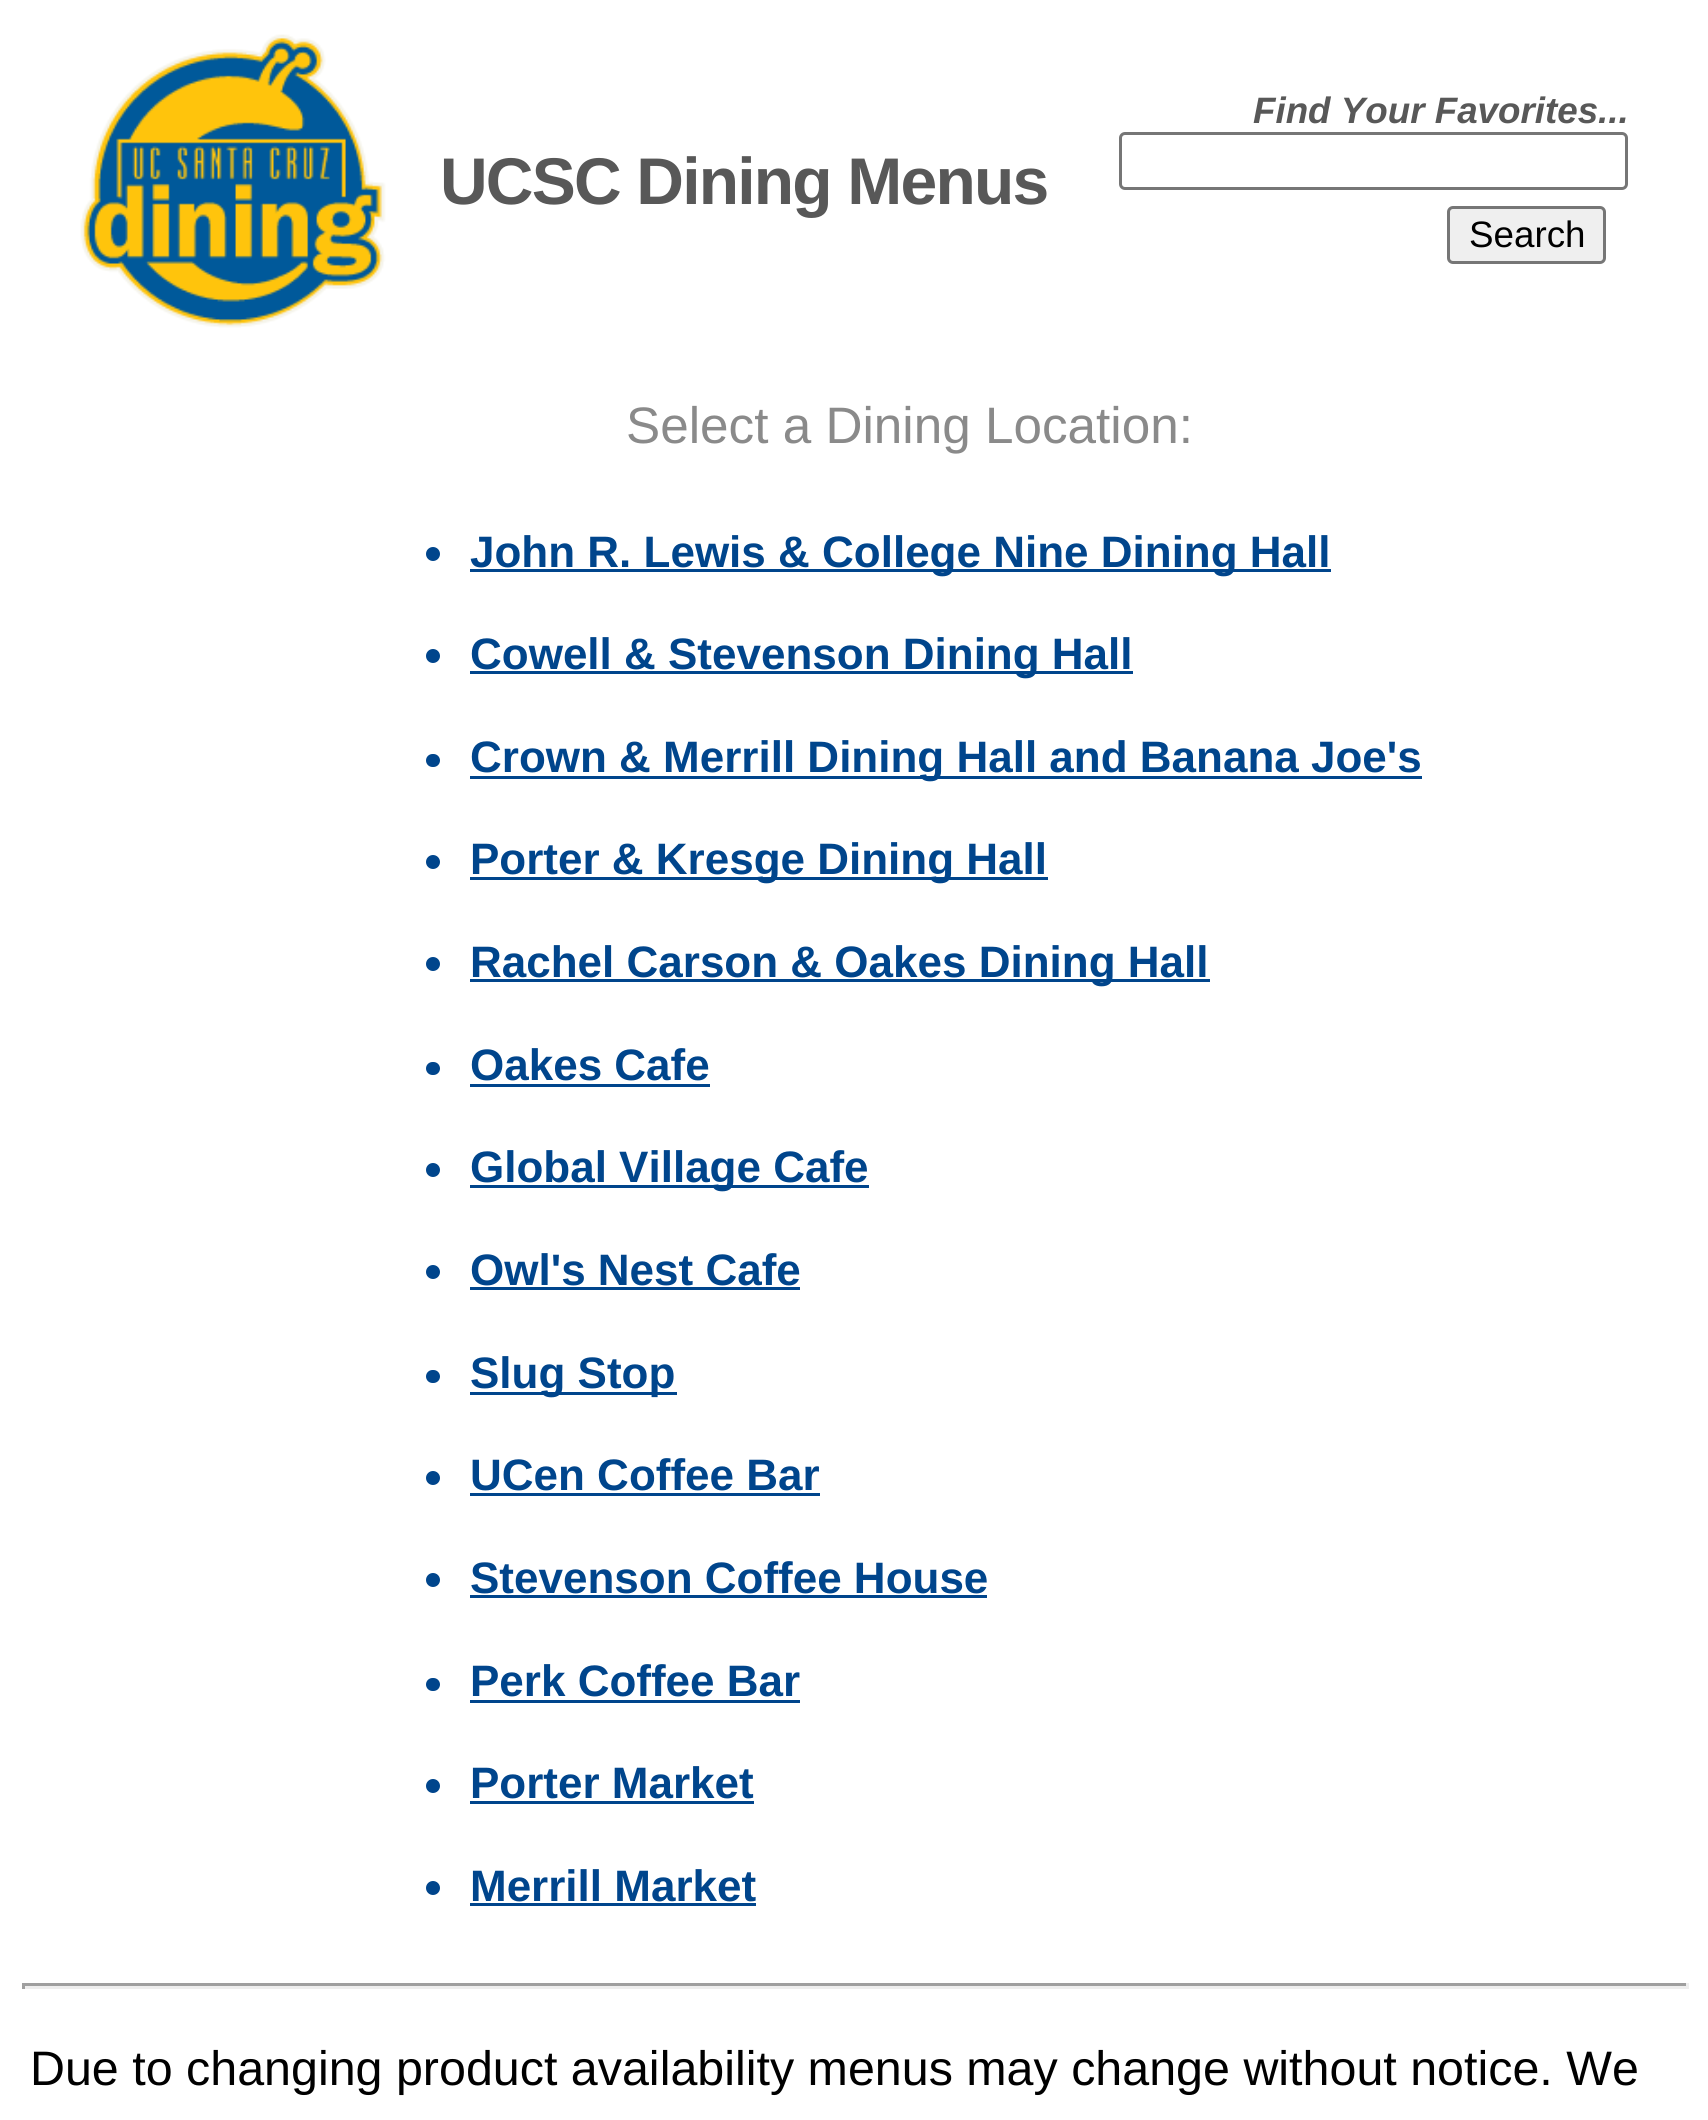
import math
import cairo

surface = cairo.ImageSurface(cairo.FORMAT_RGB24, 1708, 2120)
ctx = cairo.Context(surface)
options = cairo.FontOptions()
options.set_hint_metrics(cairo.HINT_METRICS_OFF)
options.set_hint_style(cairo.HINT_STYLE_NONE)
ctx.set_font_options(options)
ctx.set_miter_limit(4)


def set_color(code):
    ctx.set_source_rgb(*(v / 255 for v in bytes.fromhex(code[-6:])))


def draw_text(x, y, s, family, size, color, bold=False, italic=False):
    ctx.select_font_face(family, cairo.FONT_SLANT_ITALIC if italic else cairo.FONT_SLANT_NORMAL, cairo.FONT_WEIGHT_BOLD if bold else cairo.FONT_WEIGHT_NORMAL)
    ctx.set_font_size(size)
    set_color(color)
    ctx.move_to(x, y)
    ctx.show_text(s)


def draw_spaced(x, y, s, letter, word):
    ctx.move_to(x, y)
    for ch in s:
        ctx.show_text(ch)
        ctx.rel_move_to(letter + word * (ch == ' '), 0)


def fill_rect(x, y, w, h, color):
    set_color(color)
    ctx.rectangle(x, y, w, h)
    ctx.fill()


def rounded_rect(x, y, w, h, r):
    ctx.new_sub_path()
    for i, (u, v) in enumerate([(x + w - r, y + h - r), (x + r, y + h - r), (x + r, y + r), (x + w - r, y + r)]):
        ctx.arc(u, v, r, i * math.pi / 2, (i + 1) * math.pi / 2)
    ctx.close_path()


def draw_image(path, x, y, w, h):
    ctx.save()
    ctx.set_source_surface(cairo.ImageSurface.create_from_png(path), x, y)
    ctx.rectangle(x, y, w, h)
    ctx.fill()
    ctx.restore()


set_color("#ffffff")
ctx.paint()
draw_image("assets/img1.png", 80, 34, 306, 294)
ctx.select_font_face("Liberation Sans", cairo.FONT_SLANT_NORMAL, cairo.FONT_WEIGHT_BOLD)
ctx.set_font_size(66)
set_color("#585858")
draw_spaced(440, 204, "UCSC Dining Menus", -1.8, 0)
draw_text(1253, 123, "Find Your Favorites...", "Liberation Sans", 36.75, "#585858", bold=True, italic=True)
rounded_rect(1120.5, 133.5, 506, 55, 4.5)
set_color("#767676")
ctx.set_line_width(3)
ctx.stroke()
set_color("#efefef")
rounded_rect(1448.5, 207.5, 156, 55, 4.5)
ctx.fill_preserve()
set_color("#767676")
ctx.stroke()
draw_text(1469, 247, "Search", "Liberation Sans", 36.75, "#000000")
draw_text(626, 443, "Select a Dining Location:", "Liberation Sans", 51.25, "#8a8a8a")
set_color("#00458c")
ctx.new_path()
ctx.arc(433, 554, 7, 0, 2 * math.pi)
ctx.fill()
fill_rect(470, 569, 861, 3, "#00458c")
draw_text(470, 567, "John R. Lewis & College Nine Dining Hall", "Liberation Sans", 44, "#00458c", bold=True)
ctx.new_path()
ctx.arc(433, 656, 7, 0, 2 * math.pi)
ctx.fill()
fill_rect(470, 671, 663, 3, "#00458c")
draw_text(470, 669, "Cowell & Stevenson Dining Hall", "Liberation Sans", 44, "#00458c", bold=True)
rounded_rect(426, 754, 14, 13, 6.5)
ctx.fill()
fill_rect(470, 776, 952, 3, "#00458c")
draw_text(470, 772, "Crown & Merrill Dining Hall and Banana Joe's", "Liberation Sans", 44, "#00458c", bold=True)
ctx.new_path()
ctx.arc(433, 862, 7, 0, 2 * math.pi)
ctx.fill()
fill_rect(470, 877, 578, 3, "#00458c")
draw_text(470, 874, "Porter & Kresge Dining Hall", "Liberation Sans", 44, "#00458c", bold=True)
ctx.new_path()
ctx.arc(433, 964, 7, 0, 2 * math.pi)
ctx.fill()
fill_rect(470, 979, 740, 3, "#00458c")
draw_text(470, 977, "Rachel Carson & Oakes Dining Hall", "Liberation Sans", 44, "#00458c", bold=True)
rounded_rect(426, 1062, 14, 13, 6.5)
ctx.fill()
draw_text(470, 1080, "Oakes Cafe", "Liberation Sans", 44, "#00458c", bold=True)
fill_rect(470, 1084, 240, 3, "#00458c")
ctx.new_path()
ctx.arc(433, 1170, 7, 0, 2 * math.pi)
ctx.fill()
fill_rect(470, 1185, 399, 3, "#00458c")
draw_text(470, 1182, "Global Village Cafe", "Liberation Sans", 44, "#00458c", bold=True)
ctx.new_path()
ctx.arc(433, 1272, 7, 0, 2 * math.pi)
ctx.fill()
draw_text(470, 1285, "Owl's Nest Cafe", "Liberation Sans", 44, "#00458c", bold=True)
fill_rect(470, 1287, 330, 3, "#00458c")
rounded_rect(426, 1370, 14, 13, 6.5)
ctx.fill()
fill_rect(470, 1392, 207, 3, "#00458c")
draw_text(470, 1388, "Slug Stop", "Liberation Sans", 44, "#00458c", bold=True)
ctx.new_path()
ctx.arc(433, 1478, 7, 0, 2 * math.pi)
ctx.fill()
draw_text(470, 1490, "UCen Coffee Bar", "Liberation Sans", 44, "#00458c", bold=True)
fill_rect(470, 1493, 350, 3, "#00458c")
ctx.new_path()
ctx.arc(433, 1580, 7, 0, 2 * math.pi)
ctx.fill()
draw_text(470, 1593, "Stevenson Coffee House", "Liberation Sans", 44, "#00458c", bold=True)
fill_rect(470, 1595, 517, 3, "#00458c")
rounded_rect(426, 1678, 14, 13, 6.5)
ctx.fill()
draw_text(470, 1696, "Perk Coffee Bar", "Liberation Sans", 44, "#00458c", bold=True)
fill_rect(470, 1700, 330, 3, "#00458c")
ctx.new_path()
ctx.arc(433, 1786, 7, 0, 2 * math.pi)
ctx.fill()
draw_text(470, 1798, "Porter Market", "Liberation Sans", 44, "#00458c", bold=True)
fill_rect(470, 1801, 284, 3, "#00458c")
ctx.new_path()
ctx.arc(433, 1888, 7, 0, 2 * math.pi)
ctx.fill()
draw_text(470, 1901, "Merrill Market", "Liberation Sans", 44, "#00458c", bold=True)
fill_rect(470, 1903, 286, 3, "#00458c")
fill_rect(22, 1983, 1667, 3, "#9f9f9f")
fill_rect(1686, 1983, 3, 6, "#eeeeee")
fill_rect(22, 1986, 1667, 3, "#eeeeee")
fill_rect(22, 1983, 3, 6, "#9f9f9f")
draw_text(30, 2085, "Due to changing product availability menus may change without notice. We", "Liberation Sans", 48.4, "#000000")
surface.write_to_png("output.png")
